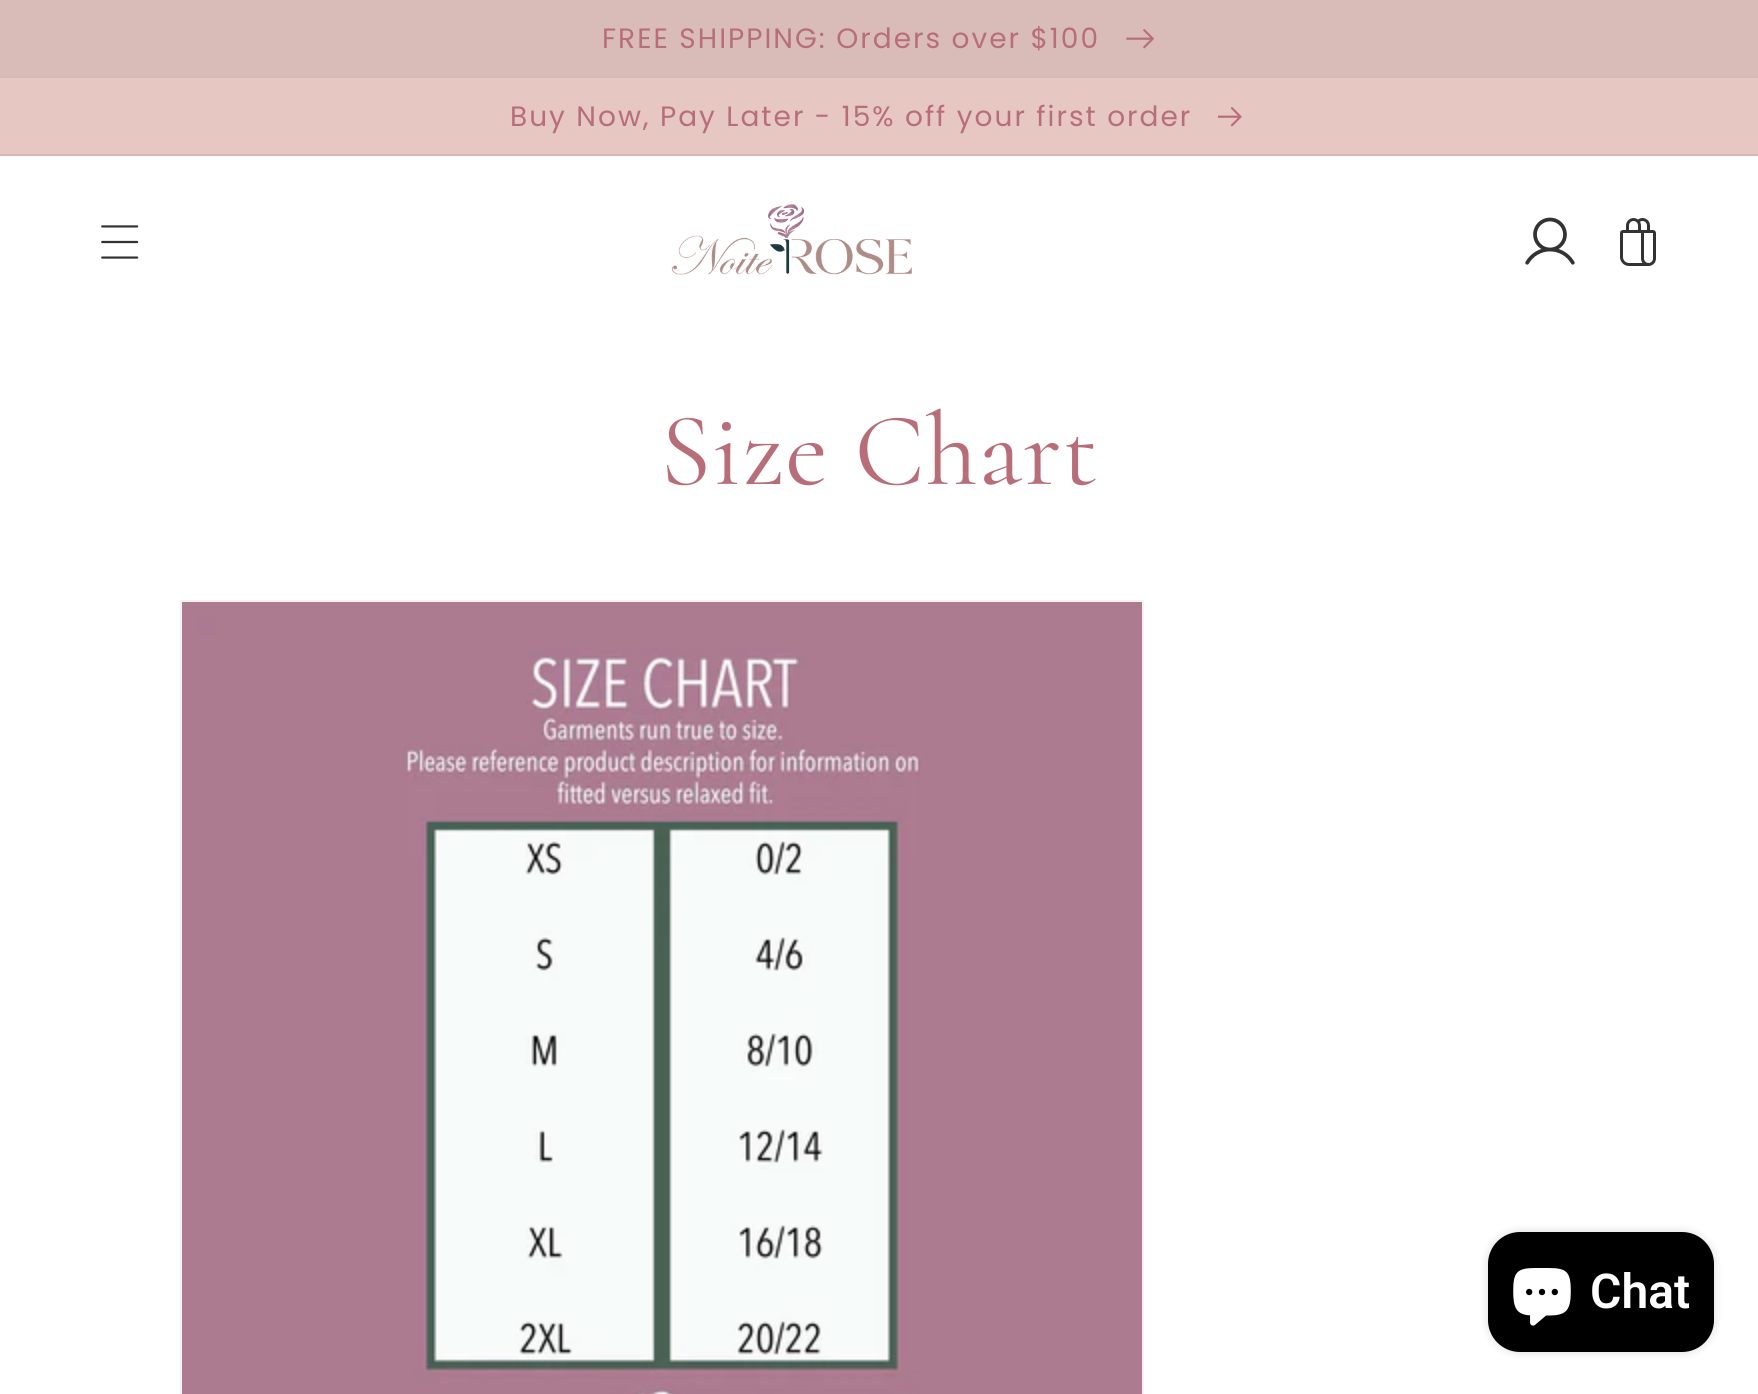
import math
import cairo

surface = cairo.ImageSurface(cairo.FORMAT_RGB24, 1758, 1394)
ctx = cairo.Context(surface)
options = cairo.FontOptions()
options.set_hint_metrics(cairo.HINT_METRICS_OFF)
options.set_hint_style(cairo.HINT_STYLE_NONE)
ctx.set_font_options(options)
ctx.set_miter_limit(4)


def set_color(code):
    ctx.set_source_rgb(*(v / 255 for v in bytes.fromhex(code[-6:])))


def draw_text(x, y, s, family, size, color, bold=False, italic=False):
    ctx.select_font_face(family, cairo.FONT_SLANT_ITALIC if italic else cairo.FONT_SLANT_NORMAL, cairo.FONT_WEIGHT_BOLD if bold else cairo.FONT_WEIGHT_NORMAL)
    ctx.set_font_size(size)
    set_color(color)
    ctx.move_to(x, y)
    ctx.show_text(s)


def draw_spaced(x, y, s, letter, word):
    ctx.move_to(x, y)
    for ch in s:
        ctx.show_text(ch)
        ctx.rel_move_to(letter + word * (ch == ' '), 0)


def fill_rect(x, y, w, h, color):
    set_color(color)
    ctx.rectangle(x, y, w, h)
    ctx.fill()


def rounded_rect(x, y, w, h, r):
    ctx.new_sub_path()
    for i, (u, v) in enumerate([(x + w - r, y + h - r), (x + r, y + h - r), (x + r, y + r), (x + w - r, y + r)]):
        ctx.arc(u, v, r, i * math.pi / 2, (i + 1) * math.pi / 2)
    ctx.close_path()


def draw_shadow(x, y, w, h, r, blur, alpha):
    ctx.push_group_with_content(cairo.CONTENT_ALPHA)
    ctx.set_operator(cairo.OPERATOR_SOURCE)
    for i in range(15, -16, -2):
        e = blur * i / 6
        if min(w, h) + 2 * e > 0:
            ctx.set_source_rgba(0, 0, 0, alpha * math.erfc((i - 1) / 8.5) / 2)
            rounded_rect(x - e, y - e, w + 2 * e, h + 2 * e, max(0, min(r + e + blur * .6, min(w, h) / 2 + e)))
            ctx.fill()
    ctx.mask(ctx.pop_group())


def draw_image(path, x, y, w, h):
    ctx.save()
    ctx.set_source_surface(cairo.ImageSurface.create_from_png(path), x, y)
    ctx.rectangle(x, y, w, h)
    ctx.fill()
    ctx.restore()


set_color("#ffffff")
ctx.paint()
fill_rect(0, 76, 1758, 2, "#d5b9b4")
fill_rect(0, 0, 1758, 76, "#d9bcb7")
ctx.select_font_face("Poppins")
ctx.set_font_size(28)
set_color("#b76e79")
draw_spaced(602, 48, "FREE SHIPPING: Orders over $100", 2, 0)
draw_image("assets/img1.png", 1126, 29, 28, 20)
fill_rect(0, 78, 1758, 76, "#e6c7c2")
fill_rect(0, 154, 1758, 2, "#d5b9b4")
set_color("#b76e79")
draw_spaced(510, 126, "Buy Now, Pay Later - 15% off your first order", 2, 0)
draw_image("assets/img2.png", 1218, 107, 24, 20)
draw_image("assets/img3.png", 101, 225, 38, 34)
draw_image("assets/img4.png", 671, 204, 241, 71)
draw_image("assets/img5.png", 1525, 217, 50, 48)
draw_image("assets/img6.png", 1620, 218, 36, 48)
ctx.select_font_face("Cormorant")
ctx.set_font_size(104)
draw_spaced(660, 484, "Size Chart", 1.25, 0)
ctx.rectangle(181, 601, 962, 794)
set_color("#f3f3f3")
ctx.stroke()
draw_image("assets/img7.png", 182, 602, 960, 792)
set_color("#000000")
draw_shadow(1488, 1232, 226, 120, 32, 5, 0.15)
set_color("#000000")
rounded_rect(1488, 1232, 226, 120, 32)
ctx.fill()
draw_image("assets/img8.png", 1513, 1268, 58, 58)
draw_text(1590, 1308, "Chat", "Roboto SemiBold", 48, "#ffffff")
surface.write_to_png("output.png")
